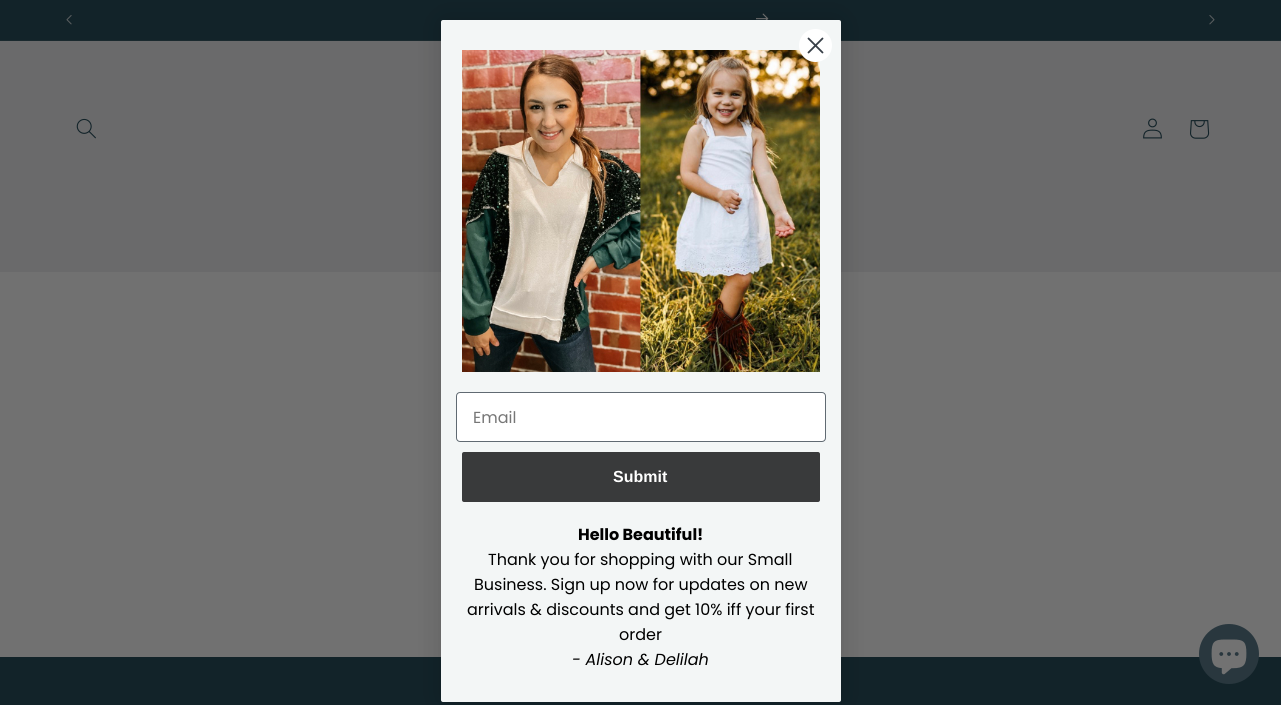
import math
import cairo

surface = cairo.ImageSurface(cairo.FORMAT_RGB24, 1281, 705)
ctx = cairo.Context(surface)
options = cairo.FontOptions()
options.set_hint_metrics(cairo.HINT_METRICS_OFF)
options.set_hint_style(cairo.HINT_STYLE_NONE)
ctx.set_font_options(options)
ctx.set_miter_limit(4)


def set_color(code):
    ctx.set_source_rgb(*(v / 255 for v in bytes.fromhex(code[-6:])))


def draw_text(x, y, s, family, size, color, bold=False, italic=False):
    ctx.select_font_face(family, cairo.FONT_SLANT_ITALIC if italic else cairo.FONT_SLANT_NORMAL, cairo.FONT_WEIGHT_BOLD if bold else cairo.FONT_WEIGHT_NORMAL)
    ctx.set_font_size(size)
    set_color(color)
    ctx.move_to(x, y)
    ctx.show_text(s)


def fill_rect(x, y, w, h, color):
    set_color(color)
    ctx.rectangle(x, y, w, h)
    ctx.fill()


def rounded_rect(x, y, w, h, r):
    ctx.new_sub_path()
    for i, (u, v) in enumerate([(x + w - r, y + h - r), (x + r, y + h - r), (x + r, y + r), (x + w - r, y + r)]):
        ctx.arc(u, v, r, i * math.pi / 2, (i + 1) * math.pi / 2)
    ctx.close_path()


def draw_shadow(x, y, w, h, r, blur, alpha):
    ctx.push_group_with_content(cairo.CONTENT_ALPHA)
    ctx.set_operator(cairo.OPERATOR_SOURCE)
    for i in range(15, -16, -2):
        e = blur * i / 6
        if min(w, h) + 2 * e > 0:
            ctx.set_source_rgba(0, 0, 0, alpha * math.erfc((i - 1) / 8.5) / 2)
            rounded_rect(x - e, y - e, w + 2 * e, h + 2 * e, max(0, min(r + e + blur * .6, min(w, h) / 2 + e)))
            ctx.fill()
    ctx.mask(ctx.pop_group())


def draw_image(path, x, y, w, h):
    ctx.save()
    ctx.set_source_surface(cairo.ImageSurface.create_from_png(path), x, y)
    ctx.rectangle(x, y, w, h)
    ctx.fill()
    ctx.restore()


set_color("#717171")
ctx.paint()
fill_rect(0, 0, 1281, 40, "#122329")
fill_rect(0, 40, 1281, 1, "#1a292e")
draw_image("assets/img1.png", 66, 15, 6, 10)
draw_image("assets/img2.png", 756, 13, 13, 7)
draw_image("assets/img3.png", 1209, 15, 6, 10)
fill_rect(0, 41, 1281, 231, "#6a6a6b")
draw_image("assets/img4.png", 76, 118, 20, 21)
draw_image("assets/img5.png", 1143, 118, 19, 21)
draw_image("assets/img6.png", 1190, 120, 20, 19)
fill_rect(0, 657, 1281, 48, "#122329")
set_color("#000000")
draw_shadow(441, 20, 400, 682, 2, 15, 0.15)
set_color("#f3f6f6")
rounded_rect(441, 20, 400, 682, 2)
ctx.fill()
draw_image("assets/img7.png", 462, 50, 358, 322)
set_color("#ffffff")
ctx.arc(815.5, 45.5, 16.5, 0, 2 * math.pi)
ctx.fill()
ctx.new_path()
ctx.move_to(808.5, 38.5)
ctx.line_to(822.5, 52.5)
ctx.move_to(808.5, 52.5)
ctx.line_to(822.5, 38.5)
ctx.close_path()
set_color("#373f47")
ctx.set_line_width(1.8)
ctx.set_line_cap(cairo.LINE_CAP_ROUND)
ctx.set_line_join(cairo.LINE_JOIN_ROUND)
ctx.stroke()
set_color("#ffffff")
rounded_rect(456.5, 392.5, 369, 49, 3.5)
ctx.fill_preserve()
set_color("#606a72")
ctx.set_line_width(1)
ctx.set_line_cap(cairo.LINE_CAP_BUTT)
ctx.set_line_join(cairo.LINE_JOIN_MITER)
ctx.stroke()
draw_text(473, 423, "Email", "Poppins", 16, "#767676")
set_color("#393a3b")
rounded_rect(462, 452, 358, 50, 2)
ctx.fill()
draw_text(613, 482, "Submit", "Liberation Sans", 16, "#ffffff", bold=True)
draw_text(578, 540, "Hello Beautiful!", "Poppins", 16, "#000000", bold=True)
draw_text(488, 565, "Thank you for shopping with our Small", "Poppins", 16, "#000000")
draw_text(474, 590, "Business. Sign up now for updates on new", "Poppins", 16, "#000000")
draw_text(467, 615, "arrivals & discounts and get 10% iff your first", "Poppins", 16, "#000000")
draw_text(619, 640, "order", "Poppins", 16, "#000000")
draw_text(572, 665, "- Alison & Delilah", "Poppins", 16, "#000000", italic=True)
set_color("#29373e")
ctx.new_path()
ctx.arc(1229, 654, 30, 0, 2 * math.pi)
ctx.fill()
draw_image("assets/img8.png", 1211, 639, 36, 36)
surface.write_to_png("output.png")
